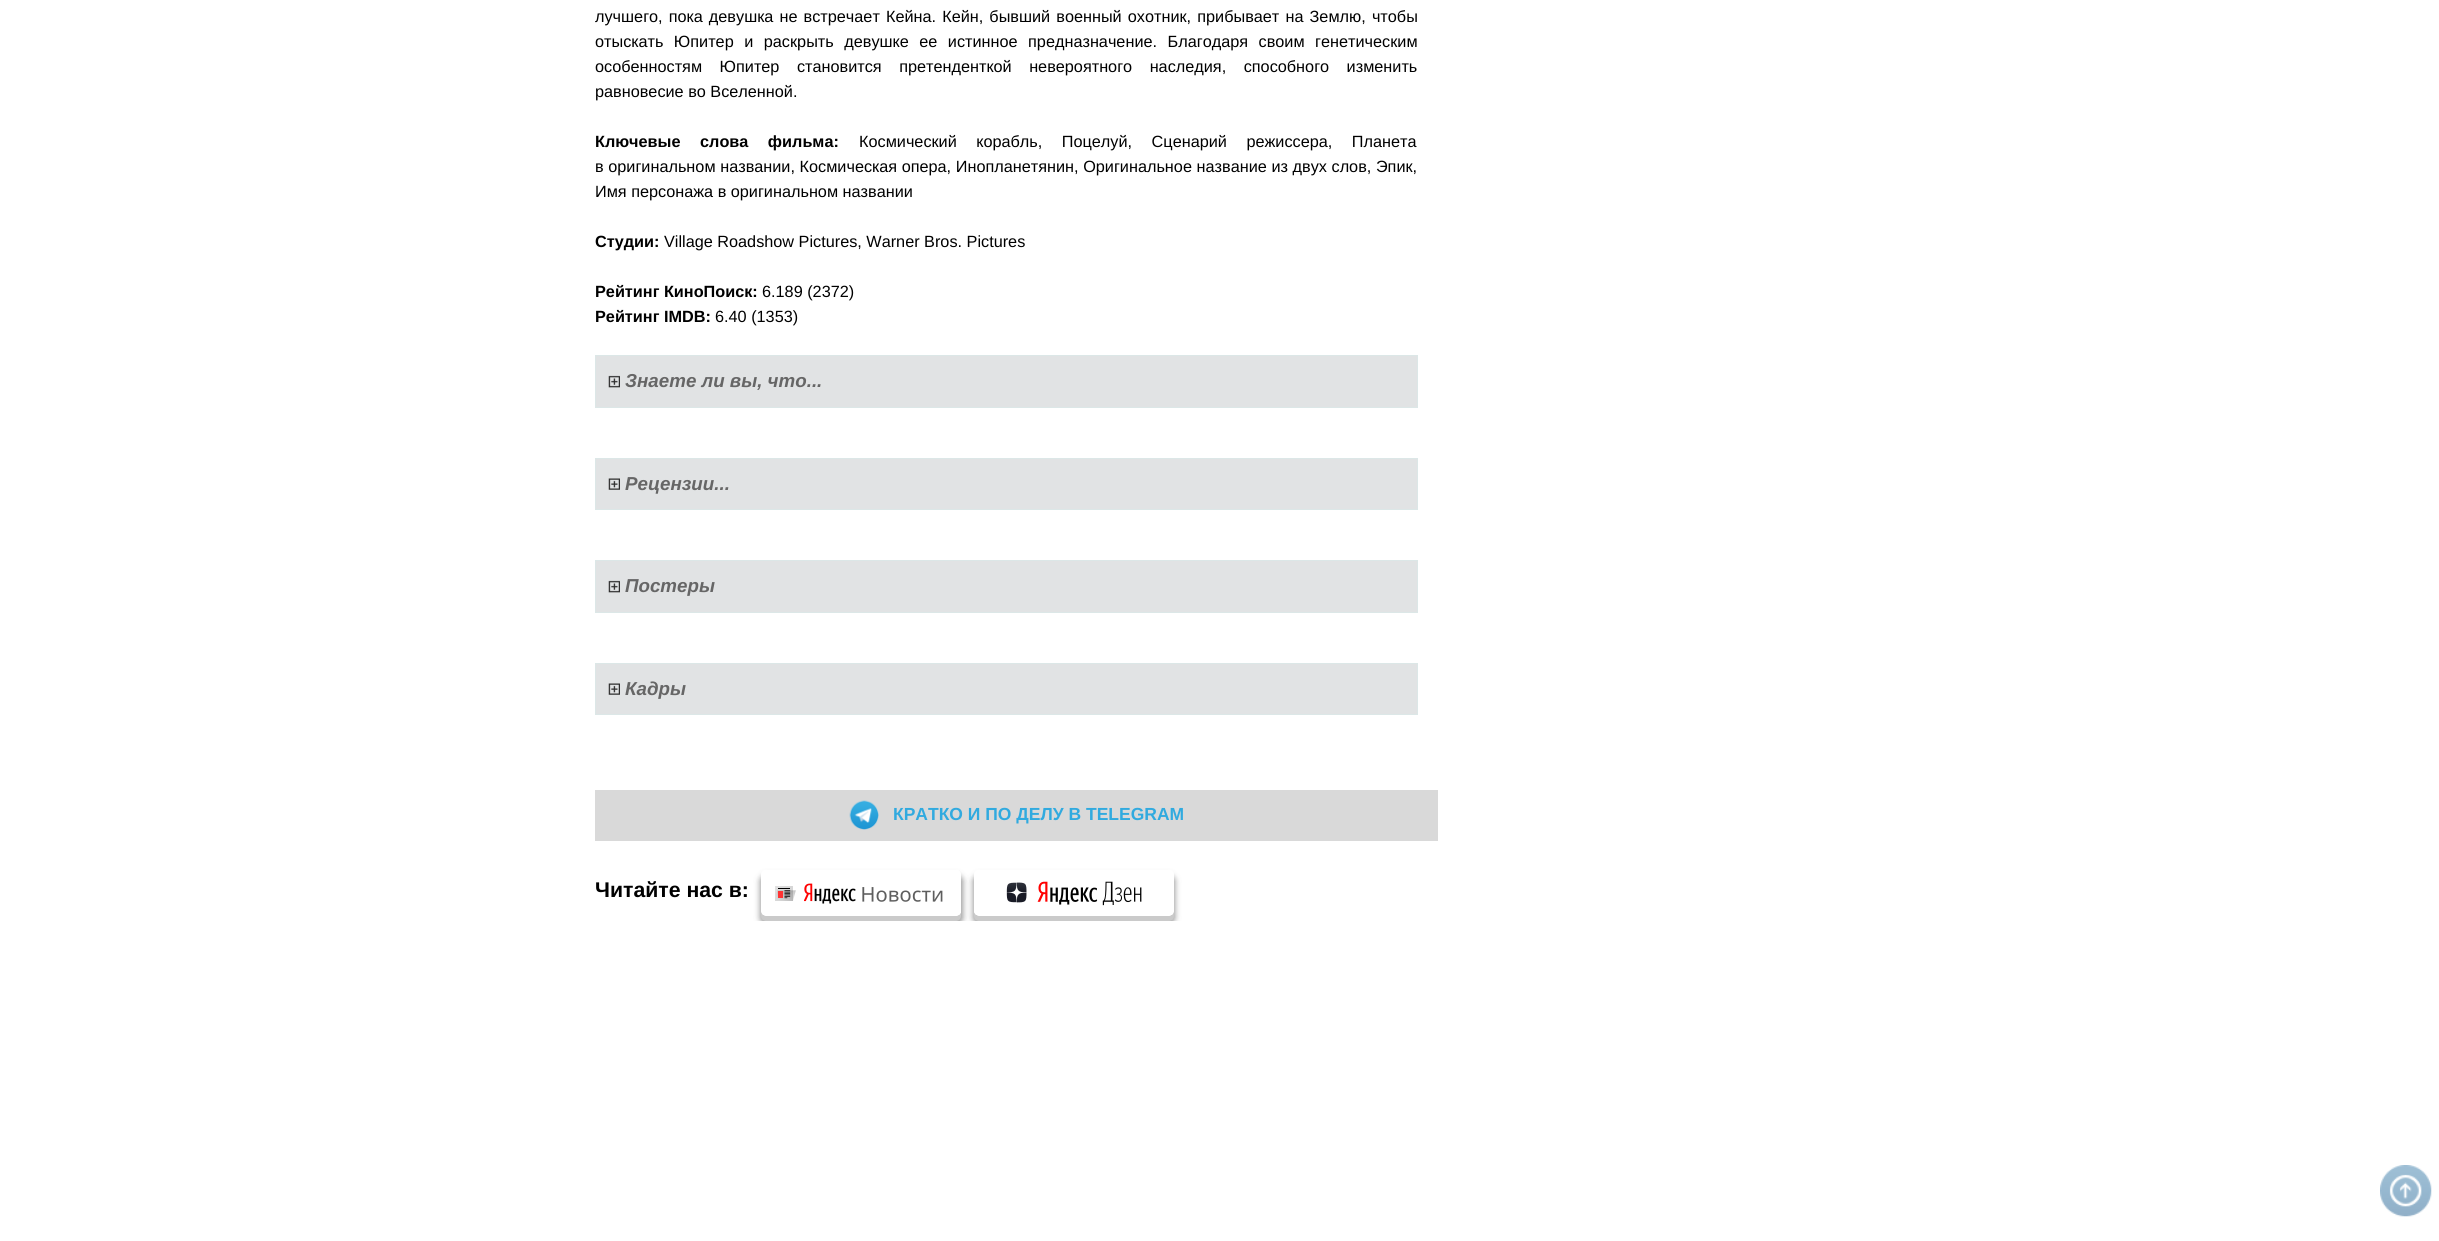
import math
import cairo

surface = cairo.ImageSurface(cairo.FORMAT_RGB24, 2439, 1241)
ctx = cairo.Context(surface)
options = cairo.FontOptions()
options.set_hint_metrics(cairo.HINT_METRICS_OFF)
options.set_hint_style(cairo.HINT_STYLE_NONE)
ctx.set_font_options(options)
ctx.set_miter_limit(4)


def set_color(code):
    ctx.set_source_rgb(*(v / 255 for v in bytes.fromhex(code[-6:])))


def draw_text(x, y, s, family, size, color, bold=False, italic=False):
    ctx.select_font_face(family, cairo.FONT_SLANT_ITALIC if italic else cairo.FONT_SLANT_NORMAL, cairo.FONT_WEIGHT_BOLD if bold else cairo.FONT_WEIGHT_NORMAL)
    ctx.set_font_size(size)
    set_color(color)
    ctx.move_to(x, y)
    ctx.show_text(s)


def draw_spaced(x, y, s, letter, word):
    ctx.move_to(x, y)
    for ch in s:
        ctx.show_text(ch)
        ctx.rel_move_to(letter + word * (ch == ' '), 0)


def fill_rect(x, y, w, h, color):
    set_color(color)
    ctx.rectangle(x, y, w, h)
    ctx.fill()


def rounded_rect(x, y, w, h, r):
    ctx.new_sub_path()
    for i, (u, v) in enumerate([(x + w - r, y + h - r), (x + r, y + h - r), (x + r, y + r), (x + w - r, y + r)]):
        ctx.arc(u, v, r, i * math.pi / 2, (i + 1) * math.pi / 2)
    ctx.close_path()


def draw_shadow(x, y, w, h, r, blur, alpha):
    ctx.push_group_with_content(cairo.CONTENT_ALPHA)
    ctx.set_operator(cairo.OPERATOR_SOURCE)
    for i in range(15, -16, -2):
        e = blur * i / 6
        if min(w, h) + 2 * e > 0:
            ctx.set_source_rgba(0, 0, 0, alpha * math.erfc((i - 1) / 8.5) / 2)
            rounded_rect(x - e, y - e, w + 2 * e, h + 2 * e, max(0, min(r + e + blur * .6, min(w, h) / 2 + e)))
            ctx.fill()
    ctx.mask(ctx.pop_group())


def draw_image(path, x, y, w, h):
    ctx.save()
    ctx.set_source_surface(cairo.ImageSurface.create_from_png(path), x, y)
    ctx.rectangle(x, y, w, h)
    ctx.fill()
    ctx.restore()


set_color("#ffffff")
ctx.paint()
ctx.select_font_face("Liberation Sans")
ctx.set_font_size(16.25)
set_color("#000000")
draw_spaced(595, 22, "лучшего, пока девушка не встречает Кейна. Кейн, бывший военный охотник, прибывает на Землю, чтобы", 0, 1.6)
draw_spaced(595, 47, "отыскать Юпитер и раскрыть девушке ее истинное предназначение. Благодаря своим генетическим", 0, 6)
draw_spaced(595, 72, "особенностям Юпитер становится претенденткой невероятного наследия, способного изменить", 0, 13)
draw_text(595, 97, "равновесие во Вселенной.", "Liberation Sans", 16.25, "#000000")
ctx.select_font_face("Liberation Sans", cairo.FONT_SLANT_NORMAL, cairo.FONT_WEIGHT_BOLD)
draw_spaced(595, 147, "Ключевые слова фильма:", 0, 15)
ctx.select_font_face("Liberation Sans")
draw_spaced(859, 147, "Космический корабль, Поцелуй, Сценарий режиссера, Планета", 0, 15)
draw_spaced(595, 172, "в оригинальном названии, Космическая опера, Инопланетянин, Оригинальное название из двух слов, Эпик,", 0, 0.1)
draw_text(595, 197, "Имя персонажа в оригинальном названии", "Liberation Sans", 16.25, "#000000")
draw_text(595, 247, "Студии:", "Liberation Sans", 16.25, "#000000", bold=True)
draw_text(664, 247, "Village Roadshow Pictures, Warner Bros. Pictures", "Liberation Sans", 16.25, "#000000")
draw_text(595, 297, "Рейтинг КиноПоиск:", "Liberation Sans", 16.25, "#000000", bold=True)
draw_text(762, 297, "6.189 (2372)", "Liberation Sans", 16.25, "#000000")
draw_text(595, 322, "Рейтинг IMDB:", "Liberation Sans", 16.25, "#000000", bold=True)
draw_text(715, 322, "6.40 (1353)", "Liberation Sans", 16.25, "#000000")
set_color("#e1e3e4")
ctx.rectangle(595.5, 355.5, 822, 52)
ctx.fill_preserve()
set_color("#dce7e7")
ctx.set_line_width(1)
ctx.stroke()
draw_image("assets/img1.png", 608, 375, 12, 13)
draw_text(625, 387, "Знаете ли вы, что...", "Liberation Sans", 18.75, "#666666", bold=True, italic=True)
set_color("#e1e3e4")
ctx.rectangle(595.5, 458.5, 822, 51)
ctx.fill_preserve()
set_color("#dce7e7")
ctx.stroke()
draw_image("assets/img2.png", 608, 478, 12, 12)
draw_text(625, 490, "Рецензии...", "Liberation Sans", 18.75, "#666666", bold=True, italic=True)
set_color("#e1e3e4")
ctx.rectangle(595.5, 560.5, 822, 52)
ctx.fill_preserve()
set_color("#dce7e7")
ctx.stroke()
draw_image("assets/img1.png", 608, 580, 12, 13)
draw_text(625, 592, "Постеры", "Liberation Sans", 18.75, "#666666", bold=True, italic=True)
set_color("#e1e3e4")
ctx.rectangle(595.5, 663.5, 822, 51)
ctx.fill_preserve()
set_color("#dce7e7")
ctx.stroke()
draw_image("assets/img2.png", 608, 683, 12, 12)
draw_text(625, 695, "Кадры", "Liberation Sans", 18.75, "#666666", bold=True, italic=True)
fill_rect(595, 790, 843, 51, "#d9d9d9")
draw_image("assets/img3.png", 849, 800, 30, 30)
draw_text(893, 820, "КРАТКО И ПО ДЕЛУ В TELEGRAM", "Liberation Sans", 17.5, "#31aadf", bold=True)
draw_text(595, 897, "Читайте нас в:", "Liberation Sans", 21.25, "#000000", bold=True)
ctx.save()
ctx.rectangle(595, 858, 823, 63)
ctx.clip()
ctx.set_fill_rule(cairo.FILL_RULE_EVEN_ODD)
ctx.new_path()
ctx.move_to(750, 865)
ctx.line_to(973, 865)
ctx.line_to(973, 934)
ctx.line_to(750, 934)
ctx.close_path()
ctx.move_to(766, 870)
ctx.line_to(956, 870)
ctx.curve_to(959, 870, 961, 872, 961, 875)
ctx.line_to(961, 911)
ctx.curve_to(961, 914, 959, 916, 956, 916)
ctx.line_to(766, 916)
ctx.curve_to(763, 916, 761, 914, 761, 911)
ctx.line_to(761, 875)
ctx.curve_to(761, 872, 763, 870, 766, 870)
ctx.close_path()
ctx.clip()
set_color("#000000")
draw_shadow(760, 875, 203, 49, 6, 3, 0.4)
ctx.restore()
set_color("#cacaca")
ctx.new_path()
ctx.move_to(761, 878)
ctx.line_to(761, 916)
ctx.curve_to(761, 919, 763, 921, 766, 921)
ctx.line_to(956, 921)
ctx.curve_to(959, 921, 961, 919, 961, 916)
ctx.line_to(961, 913)
ctx.curve_to(960, 915, 958, 916, 956, 916)
ctx.line_to(766, 916)
ctx.curve_to(763, 916, 761, 914, 761, 911)
ctx.close_path()
ctx.fill()
draw_image("assets/img4.png", 761, 877, 200, 39)
ctx.save()
ctx.rectangle(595, 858, 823, 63)
ctx.clip()
ctx.set_fill_rule(cairo.FILL_RULE_EVEN_ODD)
ctx.new_path()
ctx.move_to(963, 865)
ctx.line_to(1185, 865)
ctx.line_to(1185, 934)
ctx.line_to(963, 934)
ctx.close_path()
ctx.move_to(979, 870)
ctx.line_to(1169, 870)
ctx.curve_to(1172, 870, 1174, 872, 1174, 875)
ctx.line_to(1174, 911)
ctx.curve_to(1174, 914, 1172, 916, 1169, 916)
ctx.line_to(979, 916)
ctx.curve_to(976, 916, 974, 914, 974, 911)
ctx.line_to(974, 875)
ctx.curve_to(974, 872, 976, 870, 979, 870)
ctx.close_path()
ctx.clip()
set_color("#000000")
draw_shadow(973, 875, 202, 49, 6, 3, 0.4)
ctx.restore()
draw_image("assets/img5.png", 1006, 881, 136, 25)
ctx.new_path()
ctx.move_to(974, 913)
ctx.line_to(974, 916)
ctx.curve_to(974, 919, 976, 921, 979, 921)
ctx.line_to(1169, 921)
ctx.curve_to(1172, 921, 1174, 919, 1174, 916)
ctx.line_to(1174, 878)
ctx.line_to(1174, 911)
ctx.curve_to(1174, 914, 1172, 916, 1169, 916)
ctx.line_to(979, 916)
ctx.curve_to(977, 916, 975, 915, 974, 913)
ctx.close_path()
ctx.fill()
draw_image("assets/img6.png", 2380, 1165, 52, 52)
surface.write_to_png("output.png")
